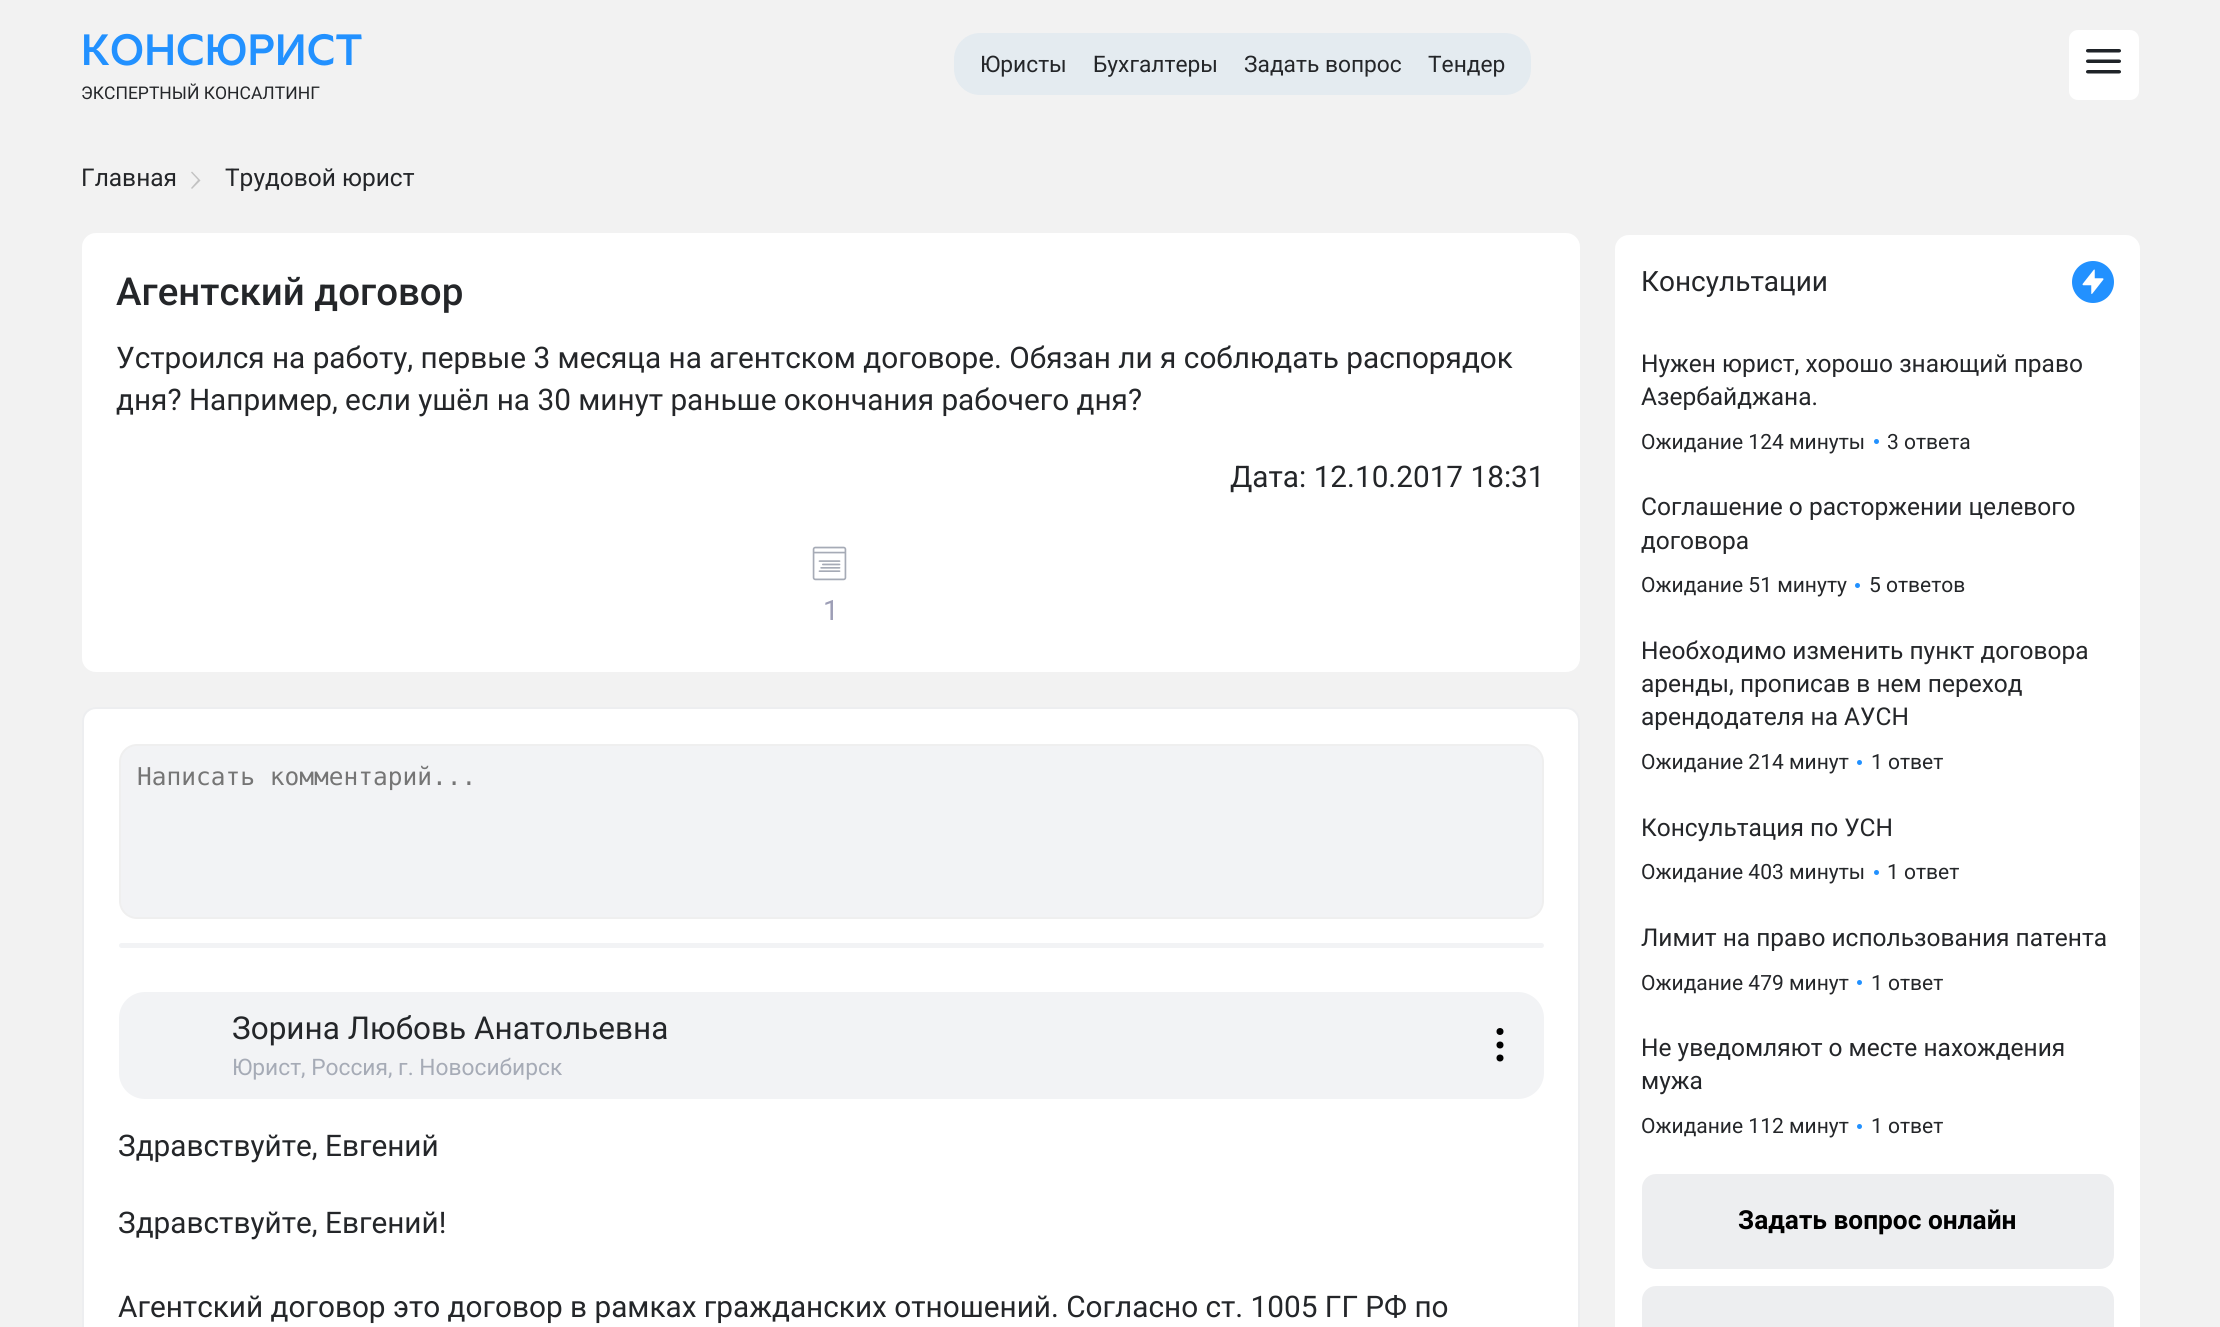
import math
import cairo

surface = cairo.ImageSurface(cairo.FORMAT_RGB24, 2220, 1327)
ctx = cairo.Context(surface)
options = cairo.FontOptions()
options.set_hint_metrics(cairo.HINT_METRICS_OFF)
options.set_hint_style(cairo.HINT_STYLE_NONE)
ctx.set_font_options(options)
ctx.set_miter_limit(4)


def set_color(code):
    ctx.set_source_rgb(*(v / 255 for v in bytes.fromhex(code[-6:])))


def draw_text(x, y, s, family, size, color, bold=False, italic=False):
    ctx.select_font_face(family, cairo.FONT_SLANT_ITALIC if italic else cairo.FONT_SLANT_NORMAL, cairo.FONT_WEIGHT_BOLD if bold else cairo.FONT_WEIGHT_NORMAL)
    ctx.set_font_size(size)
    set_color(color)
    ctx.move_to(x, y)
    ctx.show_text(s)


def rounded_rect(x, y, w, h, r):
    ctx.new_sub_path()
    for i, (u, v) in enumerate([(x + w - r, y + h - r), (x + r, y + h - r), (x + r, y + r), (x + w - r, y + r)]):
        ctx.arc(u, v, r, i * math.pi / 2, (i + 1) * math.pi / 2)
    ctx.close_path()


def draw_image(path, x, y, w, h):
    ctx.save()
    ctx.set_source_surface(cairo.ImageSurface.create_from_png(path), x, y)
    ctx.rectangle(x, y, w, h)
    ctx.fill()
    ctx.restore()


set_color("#f2f2f2")
ctx.paint()
draw_text(81, 65, "КОНСЮРИСТ", "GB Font", 43.75, "#2291ff", bold=True)
draw_text(81, 99, "ЭКСПЕРТНЫЙ КОНСАЛТИНГ", "Roboto", 17.5, "#242629")
set_color("#e4ebf0")
rounded_rect(954, 33, 577, 62, 26)
ctx.fill()
draw_text(980, 72, "Юристы", "Roboto", 22.75, "#242629")
draw_text(1093, 72, "Бухгалтеры", "Roboto", 22.75, "#242629")
draw_text(1244, 72, "Задать вопрос", "Roboto", 22.75, "#242629")
draw_text(1428, 72, "Тендер", "Roboto", 22.75, "#242629")
set_color("#ffffff")
rounded_rect(2069, 30, 70, 70, 9)
ctx.fill()
draw_image("assets/img1.png", 2086, 49, 35, 25)
draw_text(81, 186, "Главная", "Roboto", 24.5, "#242629")
set_color("#c2c2c2")
ctx.new_path()
ctx.move_to(191, 172.5)
ctx.line_to(198, 180)
ctx.line_to(191, 188)
ctx.line_to(192, 189)
ctx.line_to(200.5, 180.5)
ctx.line_to(192, 171.5)
ctx.close_path()
ctx.fill()
draw_text(225, 186, "Трудовой юрист", "Roboto", 24.5, "#242629")
set_color("#ffffff")
rounded_rect(82, 233, 1498, 439, 14)
ctx.fill()
draw_text(116, 305, "Агентский договор", "Roboto Medium", 38.5, "#242629")
draw_text(116, 368, "Устроился на работу, первые 3 месяца на агентском договоре. Обязан ли я соблюдать распорядок", "Roboto", 29.75, "#242629")
draw_text(116, 410, "дня? Например, если ушёл на 30 минут раньше окончания рабочего дня?", "Roboto", 29.75, "#242629")
draw_text(1230, 487, "Дата: 12.10.2017 18:31", "Roboto", 29.75, "#242629")
draw_image("assets/img2.png", 812, 546, 35, 35)
draw_text(823, 620, "1", "Roboto", 28, "#9d9eb6")
set_color("#ffffff")
rounded_rect(82, 707, 1498, 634, 14)
ctx.fill()
rounded_rect(83, 708, 1496, 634, 13)
ctx.set_source_rgba(0.118, 0.169, 0.267, 0.08)
ctx.stroke()
set_color("#f2f3f5")
rounded_rect(120, 745, 1423, 173, 17)
ctx.fill_preserve()
set_color("#efefef")
ctx.stroke()
draw_text(137, 785, "Написать комментарий...", "DejaVu Sans Mono", 24.5, "#757575")
set_color("#f2f3f5")
rounded_rect(119, 943, 1425, 5, 2.5)
ctx.fill()
rounded_rect(119, 992, 1425, 107, 26)
ctx.fill()
draw_text(232, 1039, "Зорина Любовь Анатольевна", "Roboto", 31.5, "#242629")
draw_text(232, 1075, "Юрист, Россия, г. Новосибирск", "Roboto", 22.75, "#a6abb6")
set_color("#000000")
ctx.new_path()
ctx.arc(1500, 1031.5, 3.5, 0, 2 * math.pi)
ctx.fill()
ctx.arc(1500, 1045, 3.5, 0, 2 * math.pi)
ctx.fill()
ctx.arc(1500, 1058, 3.5, 0, 2 * math.pi)
ctx.fill()
draw_text(118, 1156, "Здравствуйте, Евгений", "Roboto", 29.75, "#242629")
draw_text(118, 1233, "Здравствуйте, Евгений!", "Roboto", 29.75, "#242629")
draw_text(118, 1317, "Агентский договор это договор в рамках гражданских отношений. Согласно ст. 1005 ГГ РФ по", "Roboto", 29.75, "#242629")
set_color("#ffffff")
rounded_rect(1615, 235, 525, 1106, 14)
ctx.fill()
draw_text(1641, 291, "Консультации", "Roboto", 28, "#242629")
set_color("#2291ff")
ctx.new_path()
ctx.arc(2093, 282, 21, 0, 2 * math.pi)
ctx.fill()
draw_image("assets/img3.png", 2082, 269, 22, 25)
draw_text(1641, 372, "Нужен юрист, хорошо знающий право", "Roboto", 24.5, "#242629")
draw_text(1641, 405, "Азербайджана.", "Roboto", 24.5, "#242629")
draw_text(1641, 449, "Ожидание 124 минуты", "Roboto", 21, "#242629")
set_color("#2291ff")
ctx.new_path()
ctx.arc(1876.5, 441.5, 2.5, 0, 2 * math.pi)
ctx.fill()
draw_text(1887, 449, "3 ответа", "Roboto", 21, "#242629")
draw_text(1641, 515, "Соглашение о расторжении целевого", "Roboto", 24.5, "#242629")
draw_text(1641, 549, "договора", "Roboto", 24.5, "#242629")
draw_text(1641, 592, "Ожидание 51 минуту", "Roboto", 21, "#242629")
set_color("#2291ff")
ctx.new_path()
ctx.arc(1857.5, 585.5, 2.5, 0, 2 * math.pi)
ctx.fill()
draw_text(1869, 592, "5 ответов", "Roboto", 21, "#242629")
draw_text(1641, 659, "Необходимо изменить пункт договора", "Roboto", 24.5, "#242629")
draw_text(1641, 692, "аренды, прописав в нем переход", "Roboto", 24.5, "#242629")
draw_text(1641, 725, "арендодателя на АУСН", "Roboto", 24.5, "#242629")
draw_text(1641, 769, "Ожидание 214 минут", "Roboto", 21, "#242629")
set_color("#2291ff")
ctx.new_path()
ctx.arc(1859.5, 762.5, 2.5, 0, 2 * math.pi)
ctx.fill()
draw_text(1871, 769, "1 ответ", "Roboto", 21, "#242629")
draw_text(1641, 836, "Консультация по УСН", "Roboto", 24.5, "#242629")
draw_text(1641, 879, "Ожидание 403 минуты", "Roboto", 21, "#242629")
set_color("#2291ff")
ctx.new_path()
ctx.arc(1876.5, 872.5, 2.5, 0, 2 * math.pi)
ctx.fill()
draw_text(1887, 879, "1 ответ", "Roboto", 21, "#242629")
draw_text(1641, 946, "Лимит на право использования патента", "Roboto", 24.5, "#242629")
draw_text(1641, 990, "Ожидание 479 минут", "Roboto", 21, "#242629")
set_color("#2291ff")
ctx.new_path()
ctx.arc(1859.5, 982.5, 2.5, 0, 2 * math.pi)
ctx.fill()
draw_text(1871, 990, "1 ответ", "Roboto", 21, "#242629")
draw_text(1641, 1056, "Не уведомляют о месте нахождения", "Roboto", 24.5, "#242629")
draw_text(1641, 1089, "мужа", "Roboto", 24.5, "#242629")
draw_text(1641, 1133, "Ожидание 112 минут", "Roboto", 21, "#242629")
set_color("#2291ff")
ctx.new_path()
ctx.arc(1859.5, 1126.5, 2.5, 0, 2 * math.pi)
ctx.fill()
draw_text(1871, 1133, "1 ответ", "Roboto", 21, "#242629")
set_color("#edeef0")
rounded_rect(1642, 1174, 472, 95, 14)
ctx.fill()
draw_text(1738, 1229, "Задать вопрос онлайн", "Roboto", 26.25, "#000000", bold=True)
set_color("#edeef0")
rounded_rect(1642, 1286, 472, 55, 14)
ctx.fill()
surface.write_to_png("output.png")
